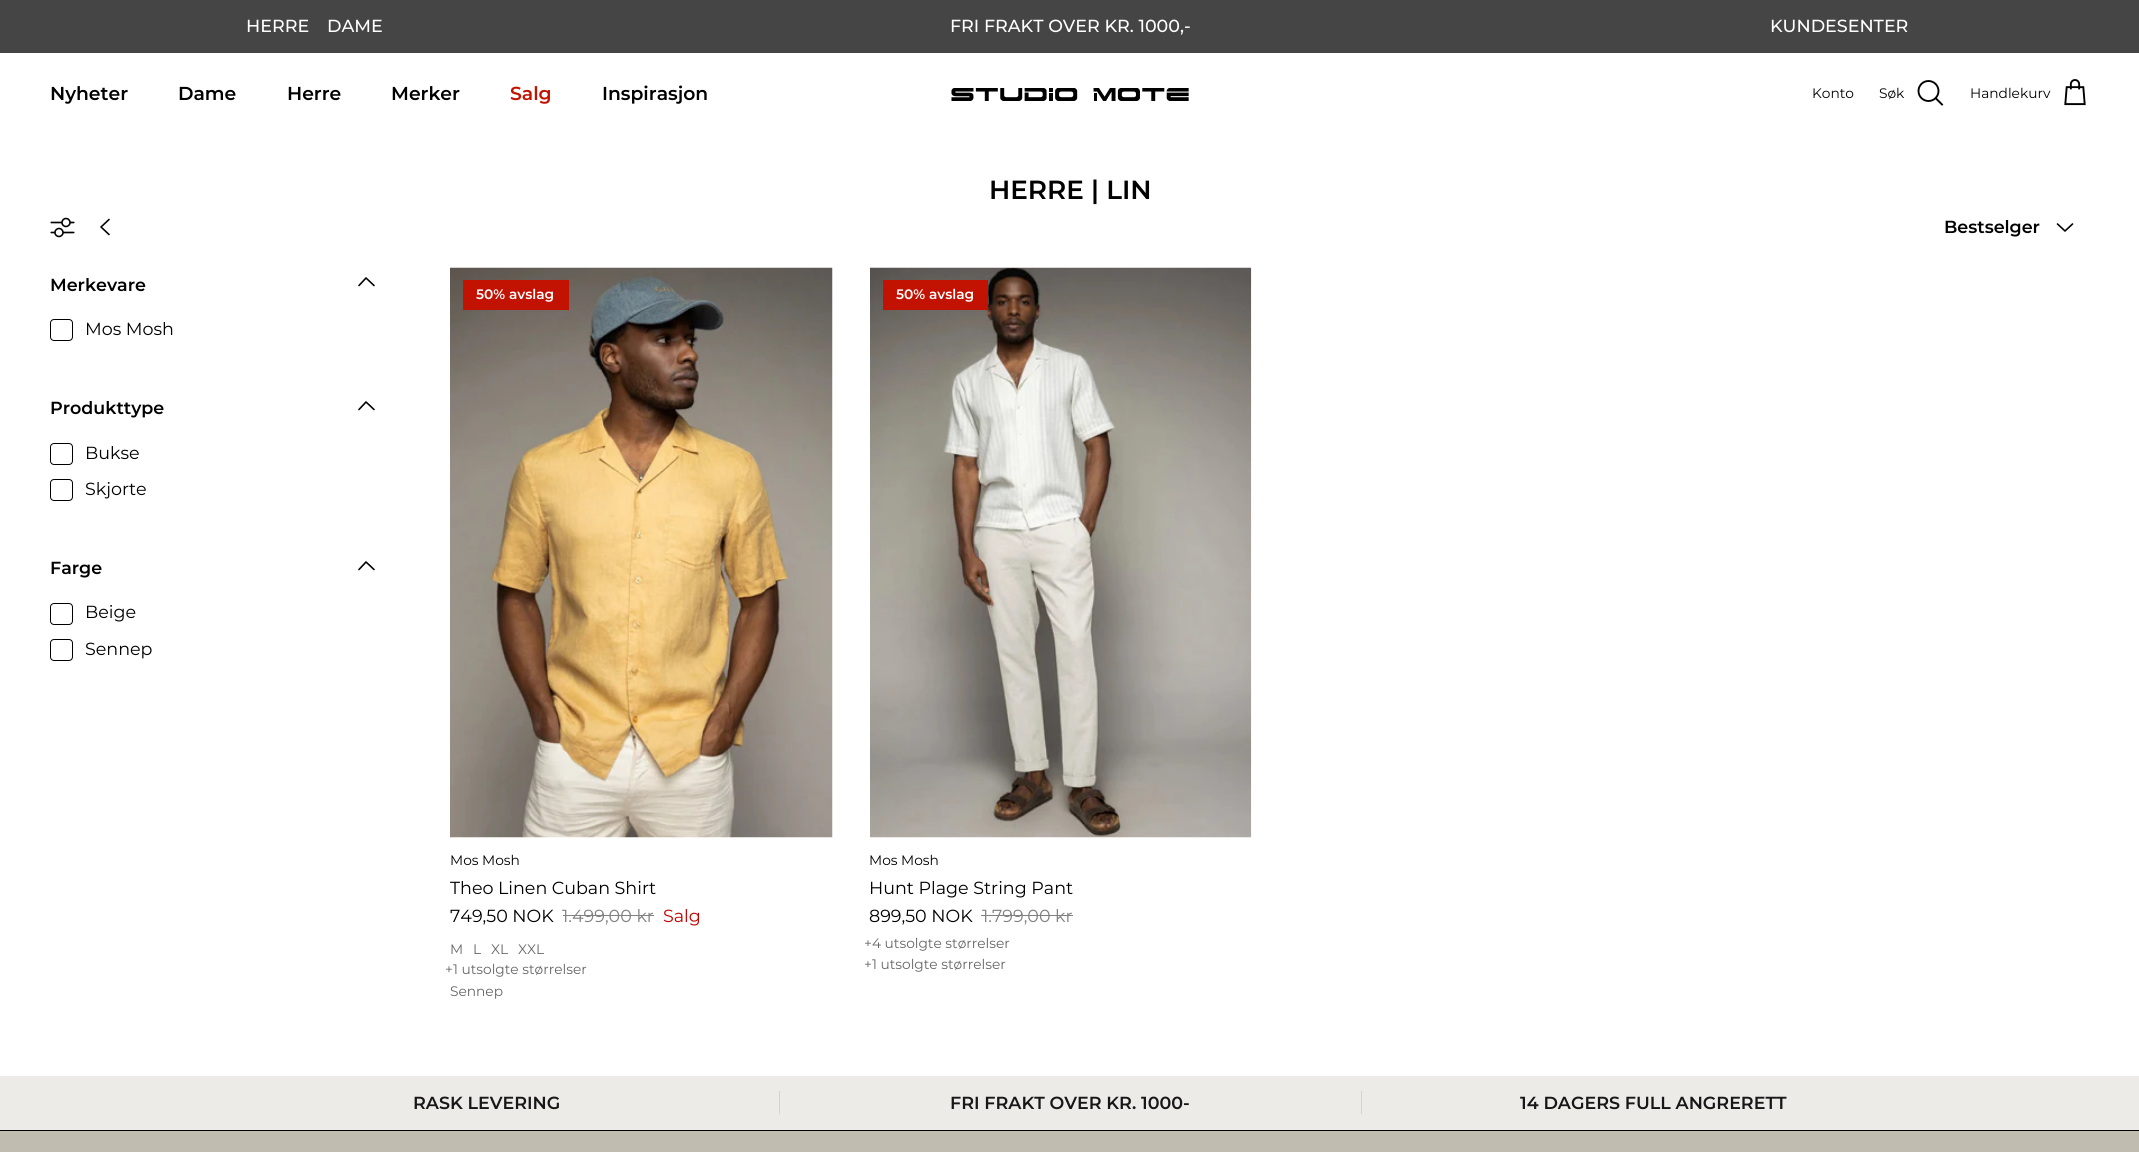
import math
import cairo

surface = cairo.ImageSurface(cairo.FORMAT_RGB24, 2139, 1152)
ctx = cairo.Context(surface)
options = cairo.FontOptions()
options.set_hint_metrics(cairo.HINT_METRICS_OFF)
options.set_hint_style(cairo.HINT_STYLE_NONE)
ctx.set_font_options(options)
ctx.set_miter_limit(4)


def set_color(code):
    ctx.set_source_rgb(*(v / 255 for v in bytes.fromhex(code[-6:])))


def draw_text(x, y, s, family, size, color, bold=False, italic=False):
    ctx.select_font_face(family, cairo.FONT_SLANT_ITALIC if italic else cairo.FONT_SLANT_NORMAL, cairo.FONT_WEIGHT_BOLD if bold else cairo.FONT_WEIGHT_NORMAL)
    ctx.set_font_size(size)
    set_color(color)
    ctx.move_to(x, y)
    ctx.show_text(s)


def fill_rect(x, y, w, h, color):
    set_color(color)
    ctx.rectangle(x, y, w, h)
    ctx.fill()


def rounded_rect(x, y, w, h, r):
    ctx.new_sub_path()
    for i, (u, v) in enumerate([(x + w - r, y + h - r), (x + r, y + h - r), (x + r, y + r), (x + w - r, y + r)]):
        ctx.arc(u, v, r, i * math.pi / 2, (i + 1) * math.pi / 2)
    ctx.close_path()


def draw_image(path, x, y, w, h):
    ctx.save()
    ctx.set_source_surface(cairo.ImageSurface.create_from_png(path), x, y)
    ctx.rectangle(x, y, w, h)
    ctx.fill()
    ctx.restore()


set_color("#ffffff")
ctx.paint()
fill_rect(0, 0, 2139, 53, "#454545")
draw_text(246, 32, "HERRE", "Montserrat Medium", 17.5, "#ffffff")
draw_text(327, 32, "DAME", "Montserrat Medium", 17.5, "#ffffff")
draw_text(950, 32, "FRI FRAKT OVER KR. 1000,-", "Montserrat Medium", 17.5, "#ffffff")
draw_text(1770, 32, "KUNDESENTER", "Montserrat Medium", 17.5, "#ffffff")
draw_text(50, 100, "Nyheter", "Montserrat SemiBold", 18.75, "#000000")
draw_text(178, 100, "Dame", "Montserrat SemiBold", 18.75, "#000000")
draw_text(287, 100, "Herre", "Montserrat SemiBold", 18.75, "#000000")
draw_text(391, 100, "Merker", "Montserrat SemiBold", 18.75, "#000000")
draw_text(510, 100, "Salg", "Montserrat SemiBold", 18.75, "#c21302")
draw_text(602, 100, "Inspirasjon", "Montserrat SemiBold", 18.75, "#000000")
draw_image("assets/img1.png", 951, 88, 238, 13)
draw_text(1812, 98, "Konto", "Montserrat", 13.75, "#000000")
draw_text(1879, 98, "Søk", "Montserrat", 13.75, "#000000")
ctx.new_path()
ctx.arc(1928.5, 91, 10, 0, 2 * math.pi)
ctx.set_line_width(1.9)
ctx.stroke()
ctx.new_path()
ctx.move_to(1936, 98.5)
ctx.line_to(1942, 104.5)
ctx.set_line_cap(cairo.LINE_CAP_SQUARE)
ctx.stroke()
draw_text(1970, 98, "Handlekurv", "Montserrat", 13.75, "#000000")
draw_image("assets/img2.png", 2064, 79, 22, 27)
draw_text(989, 199, "HERRE | LIN", "Montserrat SemiBold", 26.25, "#000000")
draw_image("assets/img3.png", 50, 217, 25, 21)
ctx.new_path()
ctx.move_to(109, 219.5)
ctx.line_to(101, 227)
ctx.line_to(109, 234.5)
ctx.set_line_width(1.6)
ctx.set_line_cap(cairo.LINE_CAP_ROUND)
ctx.set_line_join(cairo.LINE_JOIN_ROUND)
ctx.stroke()
draw_text(1944, 233, "Bestselger", "Montserrat SemiBold", 17.5, "#000000")
ctx.new_path()
ctx.move_to(2057.5, 224)
ctx.line_to(2065, 231)
ctx.line_to(2072.5, 224)
ctx.stroke()
draw_text(50, 291, "Merkevare", "Montserrat SemiBold", 17.5, "#000000")
ctx.new_path()
ctx.move_to(374, 285.5)
ctx.line_to(366, 278)
ctx.line_to(359, 285.5)
ctx.stroke()
rounded_rect(50.5, 319.5, 22, 21, 3.5)
ctx.set_line_width(1)
ctx.set_line_cap(cairo.LINE_CAP_BUTT)
ctx.set_line_join(cairo.LINE_JOIN_MITER)
ctx.stroke()
draw_text(85, 335, "Mos Mosh", "Montserrat", 17.5, "#000000")
draw_text(50, 414, "Produkttype", "Montserrat SemiBold", 17.5, "#000000")
ctx.new_path()
ctx.move_to(374, 409.5)
ctx.line_to(366, 402)
ctx.line_to(359, 409.5)
ctx.set_line_width(1.6)
ctx.set_line_cap(cairo.LINE_CAP_ROUND)
ctx.set_line_join(cairo.LINE_JOIN_ROUND)
ctx.stroke()
rounded_rect(50.5, 443.5, 22, 21, 3.5)
ctx.set_line_width(1)
ctx.set_line_cap(cairo.LINE_CAP_BUTT)
ctx.set_line_join(cairo.LINE_JOIN_MITER)
ctx.stroke()
draw_text(85, 459, "Bukse", "Montserrat", 17.5, "#000000")
rounded_rect(50.5, 479.5, 22, 21, 3.5)
ctx.stroke()
draw_text(85, 495, "Skjorte", "Montserrat", 17.5, "#000000")
draw_text(50, 574, "Farge", "Montserrat SemiBold", 17.5, "#000000")
ctx.new_path()
ctx.move_to(374, 569.5)
ctx.line_to(366, 562)
ctx.line_to(359, 569.5)
ctx.set_line_width(1.6)
ctx.set_line_cap(cairo.LINE_CAP_ROUND)
ctx.set_line_join(cairo.LINE_JOIN_ROUND)
ctx.stroke()
rounded_rect(50.5, 603.5, 22, 21, 3.5)
ctx.set_line_width(1)
ctx.set_line_cap(cairo.LINE_CAP_BUTT)
ctx.set_line_join(cairo.LINE_JOIN_MITER)
ctx.stroke()
draw_text(85, 618, "Beige", "Montserrat", 17.5, "#000000")
rounded_rect(50.5, 639.5, 22, 21, 3.5)
ctx.stroke()
draw_text(85, 655, "Sennep", "Montserrat", 17.5, "#000000")
draw_image("assets/img4.png", 450, 267, 383, 571)
fill_rect(463, 280, 106, 30, "#c21302")
draw_text(476, 299, "50% avslag", "Montserrat SemiBold", 13.75, "#ffffff")
draw_text(450, 865, "Mos Mosh", "Montserrat", 13.75, "#000000")
draw_text(450, 894, "Theo Linen Cuban Shirt", "Montserrat", 17.5, "#000000")
draw_text(450, 922, "749,50 NOK", "Montserrat", 17.5, "#000000")
draw_text(562, 922, "1.499,00 kr", "Montserrat", 17.5, "#808080")
fill_rect(563, 915, 91, 1, "#808080")
draw_text(663, 922, "Salg", "Montserrat", 17.5, "#c20000")
draw_text(450, 954, "M", "Montserrat", 13.75, "#666666")
draw_text(473, 954, "L", "Montserrat", 13.75, "#666666")
draw_text(491, 954, "XL", "Montserrat", 13.75, "#666666")
draw_text(518, 954, "XXL", "Montserrat", 13.75, "#666666")
draw_text(445, 974, "+1 utsolgte størrelser", "Montserrat", 13.75, "#666666")
draw_text(450, 996, "Sennep", "Montserrat", 13.75, "#666666")
draw_image("assets/img5.png", 870, 267, 382, 571)
fill_rect(883, 280, 105, 30, "#c21302")
draw_text(896, 299, "50% avslag", "Montserrat SemiBold", 13.75, "#ffffff")
draw_text(869, 865, "Mos Mosh", "Montserrat", 13.75, "#000000")
draw_text(869, 894, "Hunt Plage String Pant", "Montserrat", 17.5, "#000000")
draw_text(869, 922, "899,50 NOK", "Montserrat", 17.5, "#000000")
draw_text(982, 922, "1.799,00 kr", "Montserrat", 17.5, "#808080")
fill_rect(981, 915, 92, 1, "#808080")
draw_text(864, 948, "+4 utsolgte størrelser", "Montserrat", 13.75, "#666666")
draw_text(864, 969, "+1 utsolgte størrelser", "Montserrat", 13.75, "#666666")
fill_rect(0, 1076, 2139, 54, "#ecebe7")
draw_text(413, 1109, "RASK LEVERING", "Montserrat SemiBold", 17.5, "#171717")
fill_rect(779, 1091, 1, 23, "#d4d3d0")
draw_text(950, 1109, "FRI FRAKT OVER KR. 1000-", "Montserrat SemiBold", 17.5, "#171717")
fill_rect(1361, 1091, 1, 23, "#d4d3d0")
draw_text(1520, 1109, "14 DAGERS FULL ANGRERETT", "Montserrat SemiBold", 17.5, "#171717")
fill_rect(0, 1131, 2139, 21, "#c0bdb0")
fill_rect(0, 1130, 2139, 1, "#000000")
surface.write_to_png("output.png")
